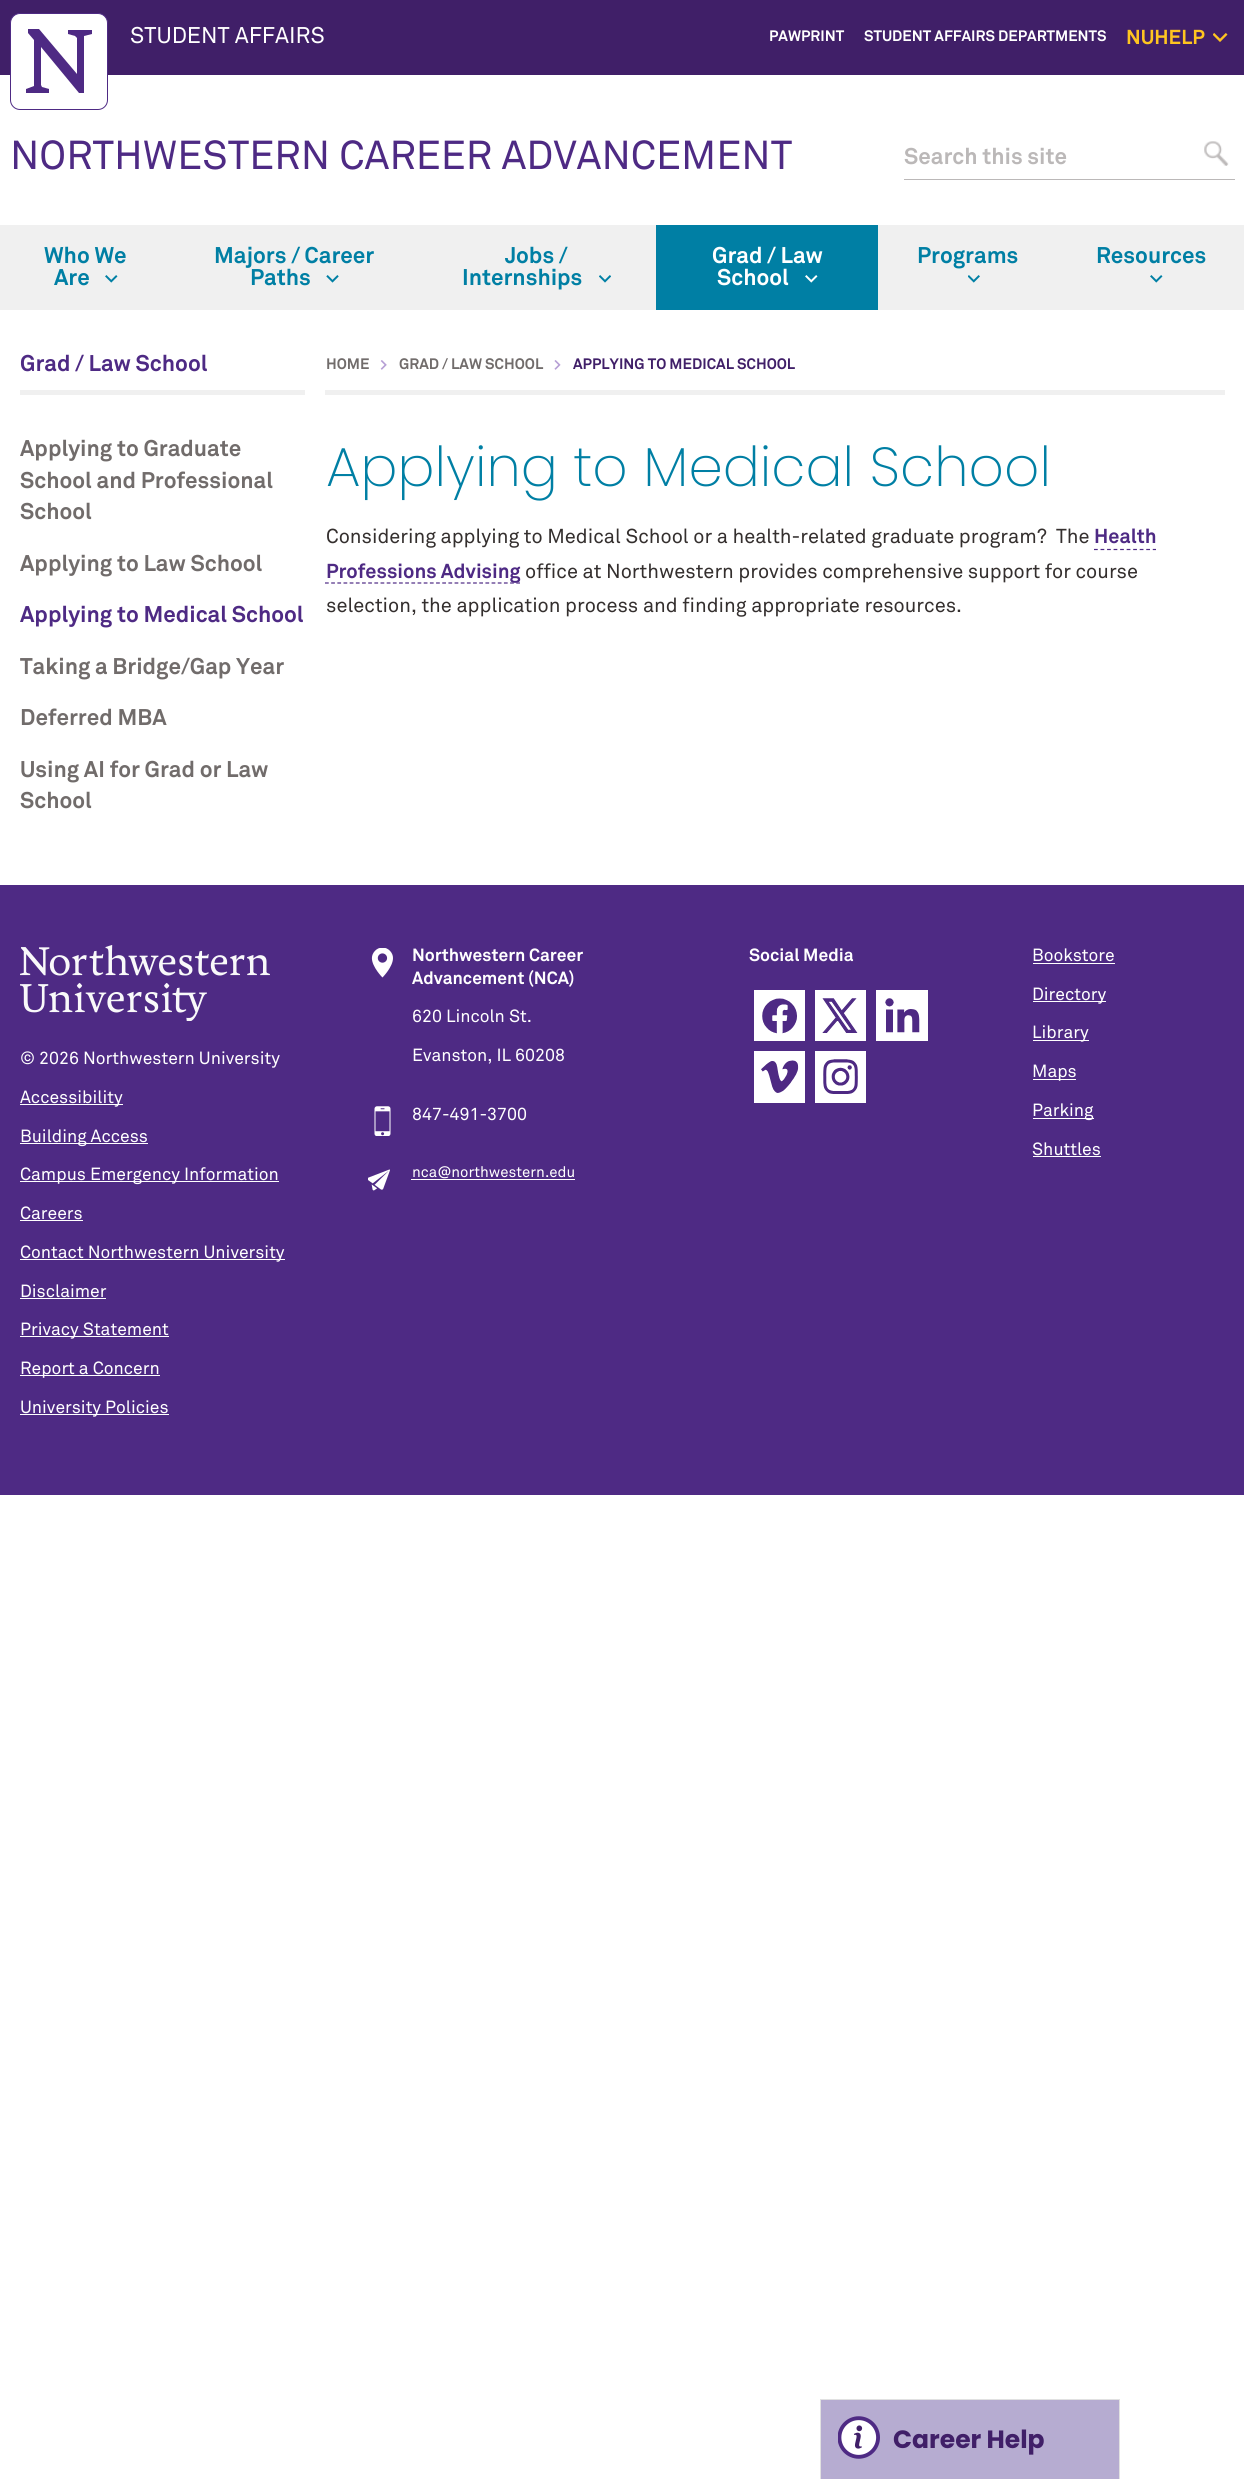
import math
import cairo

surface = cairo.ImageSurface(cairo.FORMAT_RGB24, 1244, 2479)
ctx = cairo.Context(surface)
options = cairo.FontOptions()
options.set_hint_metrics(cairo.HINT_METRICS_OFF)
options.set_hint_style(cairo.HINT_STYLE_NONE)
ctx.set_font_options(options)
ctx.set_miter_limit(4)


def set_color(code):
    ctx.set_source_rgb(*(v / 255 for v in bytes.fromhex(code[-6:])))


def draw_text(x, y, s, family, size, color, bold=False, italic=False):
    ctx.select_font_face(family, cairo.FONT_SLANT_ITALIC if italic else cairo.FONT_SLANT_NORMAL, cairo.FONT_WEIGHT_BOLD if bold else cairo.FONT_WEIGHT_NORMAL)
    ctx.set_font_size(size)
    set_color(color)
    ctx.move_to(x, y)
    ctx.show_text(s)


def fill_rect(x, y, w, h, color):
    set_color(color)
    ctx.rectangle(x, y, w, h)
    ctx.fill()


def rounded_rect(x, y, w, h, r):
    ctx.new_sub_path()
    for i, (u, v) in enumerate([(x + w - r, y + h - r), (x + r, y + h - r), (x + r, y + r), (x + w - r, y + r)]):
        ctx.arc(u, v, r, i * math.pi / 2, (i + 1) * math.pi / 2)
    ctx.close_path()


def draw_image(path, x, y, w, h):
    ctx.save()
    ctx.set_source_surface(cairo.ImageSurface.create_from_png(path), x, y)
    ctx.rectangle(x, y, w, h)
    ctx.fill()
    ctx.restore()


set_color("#ffffff")
ctx.paint()
fill_rect(0, 0, 1244, 75, "#401f68")
set_color("#ffffff")
rounded_rect(10.5, 13.5, 97, 96, 9.5)
ctx.fill_preserve()
set_color("#4e2a84")
ctx.set_line_width(1)
ctx.stroke()
ctx.new_path()
ctx.move_to(68, 30)
ctx.line_to(68, 34)
ctx.line_to(75, 36)
ctx.line_to(77, 38)
ctx.line_to(77, 74)
ctx.line_to(39, 29)
ctx.line_to(28, 29)
ctx.line_to(28, 33)
ctx.line_to(34, 40)
ctx.line_to(34, 86)
ctx.line_to(26, 89)
ctx.line_to(26, 93)
ctx.line_to(49, 93)
ctx.line_to(49, 89)
ctx.line_to(42, 87)
ctx.line_to(41, 85)
ctx.line_to(41, 47)
ctx.line_to(79, 93)
ctx.line_to(84, 93)
ctx.line_to(84, 36)
ctx.line_to(92, 34)
ctx.line_to(92, 30)
ctx.close_path()
ctx.fill()
draw_text(130, 43, "STUDENT AFFAIRS", "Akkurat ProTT", 22.5, "#ffffff")
draw_text(769, 41, "PAWPRINT", "Akkurat ProTT", 15, "#ffffff", bold=True)
draw_text(864, 41, "STUDENT AFFAIRS DEPARTMENTS", "Akkurat ProTT", 15, "#ffffff", bold=True)
draw_text(1126, 44, "NUHELP", "Akkurat ProTT", 20, "#ffc520", bold=True)
draw_image("assets/img1.png", 1213, 33, 15, 9)
draw_text(10, 169, "NORTHWESTERN CAREER ADVANCEMENT", "Akkurat ProTT", 40, "#4e2a84")
fill_rect(904, 179, 331, 1, "#bbb8b8")
draw_text(904, 164, "Search this site", "Akkurat ProTT", 22.5, "#bbb8b8", bold=True)
draw_image("assets/img2.png", 1204, 141, 25, 25)
fill_rect(0, 225, 1244, 85, "#f0f0f0")
draw_text(44, 263, "Who We", "Akkurat ProTT", 22.5, "#007fa4", bold=True)
draw_text(54, 285, "Are", "Akkurat ProTT", 22.5, "#007fa4", bold=True)
draw_image("assets/img3.png", 105, 275, 13, 8)
draw_text(214, 263, "Majors / Career", "Akkurat ProTT", 22.5, "#007fa4", bold=True)
draw_text(250, 285, "Paths", "Akkurat ProTT", 22.5, "#007fa4", bold=True)
draw_image("assets/img4.png", 326, 275, 13, 8)
draw_text(505, 263, "Jobs /", "Akkurat ProTT", 22.5, "#007fa4", bold=True)
draw_text(462, 285, "Internships", "Akkurat ProTT", 22.5, "#007fa4", bold=True)
draw_image("assets/img5.png", 599, 275, 12, 8)
fill_rect(656, 225, 222, 85, "#007fa4")
draw_text(712, 263, "Grad / Law", "Akkurat ProTT", 22.5, "#ffffff", bold=True)
draw_text(717, 285, "School", "Akkurat ProTT", 22.5, "#ffffff", bold=True)
draw_image("assets/img6.png", 805, 275, 13, 8)
draw_text(917, 263, "Programs", "Akkurat ProTT", 22.5, "#007fa4", bold=True)
draw_image("assets/img7.png", 968, 275, 12, 8)
draw_text(1096, 263, "Resources", "Akkurat ProTT", 22.5, "#007fa4", bold=True)
draw_image("assets/img3.png", 1150, 275, 13, 8)
fill_rect(20, 390, 285, 5, "#f0f0f0")
draw_text(20, 371, "Grad / Law School", "Akkurat ProTT", 22.5, "#4e2a84", bold=True)
draw_text(20, 456, "Applying to Graduate", "Akkurat ProTT", 22.5, "#716c6b", bold=True)
draw_text(20, 488, "School and Professional", "Akkurat ProTT", 22.5, "#716c6b", bold=True)
draw_text(20, 519, "School", "Akkurat ProTT", 22.5, "#716c6b", bold=True)
draw_text(20, 571, "Applying to Law School", "Akkurat ProTT", 22.5, "#716c6b", bold=True)
draw_text(20, 622, "Applying to Medical School", "Akkurat ProTT", 22.5, "#4e2a84", bold=True)
draw_text(20, 674, "Taking a Bridge/Gap Year", "Akkurat ProTT", 22.5, "#716c6b", bold=True)
draw_text(20, 725, "Deferred MBA", "Akkurat ProTT", 22.5, "#716c6b", bold=True)
draw_text(20, 777, "Using AI for Grad or Law", "Akkurat ProTT", 22.5, "#716c6b", bold=True)
draw_text(20, 808, "School", "Akkurat ProTT", 22.5, "#716c6b", bold=True)
fill_rect(325, 390, 900, 5, "#f0f0f0")
draw_text(326, 369, "HOME", "Akkurat ProTT", 15, "#716c6b", bold=True)
draw_image("assets/img8.png", 380, 360, 7, 10)
draw_text(399, 369, "GRAD / LAW SCHOOL", "Akkurat ProTT", 15, "#716c6b", bold=True)
draw_image("assets/img9.png", 554, 360, 7, 10)
draw_text(573, 369, "APPLYING TO MEDICAL SCHOOL", "Akkurat ProTT", 15, "#401f68", bold=True)
draw_text(326, 486, "Applying to Medical School", "Poppins ExtraLight", 55, "#007fa4")
draw_text(326, 543, "Considering applying to Medical School or a health-related graduate program?  The", "Akkurat ProTT", 20, "#342f2e")
draw_text(1094, 543, "Health", "Akkurat ProTT", 20, "#4e2a84", bold=True)
ctx.new_path()
ctx.move_to(1094, 549.5)
ctx.line_to(1156, 549.5)
ctx.set_line_width(1.2)
ctx.set_dash([3.75, 2.78])
ctx.stroke()
ctx.new_path()
ctx.move_to(325, 583)
ctx.line_to(520, 583)
ctx.set_dash([3.75, 2.42])
ctx.stroke()
draw_text(326, 578, "Professions Advising", "Akkurat ProTT", 20, "#4e2a84", bold=True)
draw_text(525, 578, "office at Northwestern provides comprehensive support for course", "Akkurat ProTT", 20, "#342f2e")
draw_text(326, 612, "selection, the application process and finding appropriate resources.", "Akkurat ProTT", 20, "#342f2e")
fill_rect(0, 885, 1244, 610, "#4e2a84")
draw_image("assets/img10.png", 20, 945, 250, 76)
draw_text(20, 1064, "© 2026 Northwestern University", "Akkurat ProTT", 17.5, "#ffffff")
fill_rect(20, 1104, 103, 1, "#ffffff")
draw_text(20, 1103, "Accessibility", "Akkurat ProTT", 17.5, "#ffffff")
fill_rect(20, 1143, 128, 1, "#ffffff")
draw_text(20, 1142, "Building Access", "Akkurat ProTT", 17.5, "#ffffff")
fill_rect(20, 1181, 259, 1, "#ffffff")
draw_text(20, 1180, "Campus Emergency Information", "Akkurat ProTT", 17.5, "#ffffff")
draw_text(20, 1219, "Careers", "Akkurat ProTT", 17.5, "#ffffff")
fill_rect(20, 1220, 63, 1, "#ffffff")
fill_rect(20, 1259, 265, 1, "#ffffff")
draw_text(20, 1258, "Contact Northwestern University", "Akkurat ProTT", 17.5, "#ffffff")
draw_text(20, 1297, "Disclaimer", "Akkurat ProTT", 17.5, "#ffffff")
fill_rect(20, 1298, 86, 1, "#ffffff")
fill_rect(20, 1336, 149, 1, "#ffffff")
draw_text(20, 1335, "Privacy Statement", "Akkurat ProTT", 17.5, "#ffffff")
fill_rect(20, 1375, 140, 1, "#ffffff")
draw_text(20, 1374, "Report a Concern", "Akkurat ProTT", 17.5, "#ffffff")
fill_rect(20, 1414, 149, 1, "#ffffff")
draw_text(20, 1413, "University Policies", "Akkurat ProTT", 17.5, "#ffffff")
draw_image("assets/img11.png", 371, 948, 22, 30)
draw_text(412, 961, "Northwestern Career", "Akkurat ProTT", 17.5, "#ffffff", bold=True)
draw_text(412, 984, "Advancement (NCA)", "Akkurat ProTT", 17.5, "#ffffff", bold=True)
draw_text(412, 1022, "620 Lincoln St.", "Akkurat ProTT", 17.5, "#ffffff")
draw_text(412, 1061, "Evanston, IL 60208", "Akkurat ProTT", 17.5, "#ffffff")
draw_image("assets/img12.png", 374, 1106, 17, 30)
draw_text(412, 1120, "847-491-3700", "Akkurat ProTT", 17.5, "#ffffff")
draw_image("assets/img13.png", 368, 1169, 22, 22)
draw_text(412, 1177, "nca@northwestern.edu", "Akkurat ProTT", 15, "#ffffff")
fill_rect(411, 1179, 164, 1, "#ffffff")
draw_text(749, 961, "Social Media", "Akkurat ProTT", 17.5, "#ffffff", bold=True)
fill_rect(754, 990, 51, 51, "#ffffff")
draw_image("assets/img14.png", 762, 998, 35, 36)
fill_rect(815, 990, 51, 51, "#ffffff")
draw_image("assets/img15.png", 822, 998, 36, 35)
fill_rect(876, 990, 52, 51, "#ffffff")
draw_image("assets/img16.png", 885, 998, 35, 35)
fill_rect(754, 1051, 51, 52, "#ffffff")
draw_image("assets/img17.png", 761, 1060, 38, 33)
fill_rect(815, 1051, 51, 52, "#ffffff")
draw_image("assets/img18.png", 823, 1059, 35, 35)
draw_text(1032, 961, "Bookstore", "Akkurat ProTT", 17.5, "#ffffff")
fill_rect(1033, 963, 82, 1, "#ffffff")
fill_rect(1033, 1001, 73, 1, "#ffffff")
draw_text(1032, 1000, "Directory", "Akkurat ProTT", 17.5, "#ffffff")
fill_rect(1033, 1040, 56, 1, "#ffffff")
draw_text(1032, 1038, "Library", "Akkurat ProTT", 17.5, "#ffffff")
fill_rect(1033, 1079, 43, 1, "#ffffff")
draw_text(1032, 1077, "Maps", "Akkurat ProTT", 17.5, "#ffffff")
fill_rect(1033, 1118, 61, 1, "#ffffff")
draw_text(1032, 1116, "Parking", "Akkurat ProTT", 17.5, "#ffffff")
draw_text(1032, 1155, "Shuttles", "Akkurat ProTT", 17.5, "#ffffff")
fill_rect(1033, 1156, 68, 1, "#ffffff")
fill_rect(821, 2400, 298, 79, "#b6acd1")
fill_rect(820, 2399, 300, 1, "#e1e1e1")
fill_rect(1119, 2399, 1, 80, "#e1e1e1")
fill_rect(820, 2399, 1, 80, "#e1e1e1")
draw_image("assets/img19.png", 838, 2416, 42, 43)
draw_text(893, 2448, "Career Help", "Poppins", 25, "#401f68", bold=True)
surface.write_to_png("output.png")
